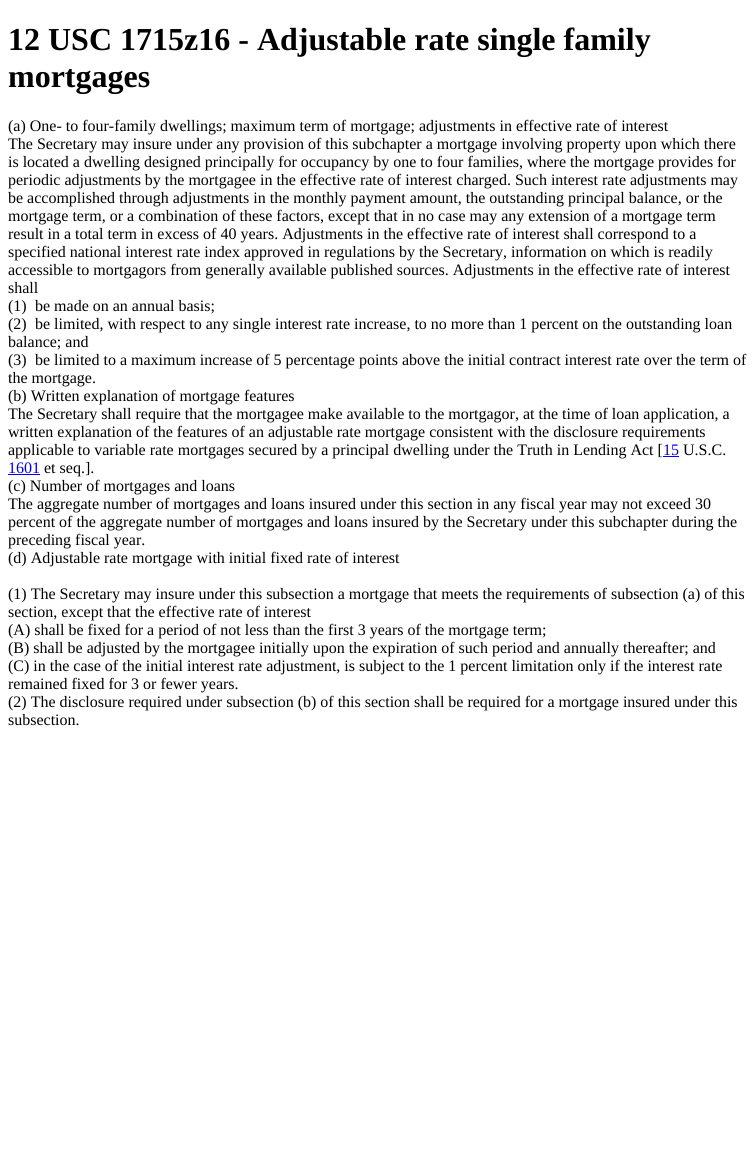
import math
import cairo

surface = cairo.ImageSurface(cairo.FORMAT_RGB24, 756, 1167)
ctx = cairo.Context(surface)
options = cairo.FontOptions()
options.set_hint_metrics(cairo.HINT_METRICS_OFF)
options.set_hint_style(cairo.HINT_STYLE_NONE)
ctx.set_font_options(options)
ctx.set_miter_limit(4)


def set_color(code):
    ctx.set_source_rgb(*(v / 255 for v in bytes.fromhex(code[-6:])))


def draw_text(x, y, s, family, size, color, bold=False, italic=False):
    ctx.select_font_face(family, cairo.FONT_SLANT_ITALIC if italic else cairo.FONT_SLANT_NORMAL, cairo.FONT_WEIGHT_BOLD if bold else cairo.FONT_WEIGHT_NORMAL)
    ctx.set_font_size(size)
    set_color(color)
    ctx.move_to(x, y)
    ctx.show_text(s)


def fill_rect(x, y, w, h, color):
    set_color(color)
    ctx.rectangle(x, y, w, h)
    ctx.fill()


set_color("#ffffff")
ctx.paint()
draw_text(8, 50, "12 USC 1715z16 - Adjustable rate single family", "Liberation Serif", 32, "#000000", bold=True)
draw_text(8, 87, "mortgages", "Liberation Serif", 32, "#000000", bold=True)
draw_text(8, 131, "(a) One- to four-family dwellings; maximum term of mortgage; adjustments in effective rate of interest", "Liberation Serif", 16, "#000000")
draw_text(8, 149, "The Secretary may insure under any provision of this subchapter a mortgage involving property upon which there", "Liberation Serif", 16, "#000000")
draw_text(8, 167, "is located a dwelling designed principally for occupancy by one to four families, where the mortgage provides for", "Liberation Serif", 16, "#000000")
draw_text(8, 185, "periodic adjustments by the mortgagee in the effective rate of interest charged. Such interest rate adjustments may", "Liberation Serif", 16, "#000000")
draw_text(8, 203, "be accomplished through adjustments in the monthly payment amount, the outstanding principal balance, or the", "Liberation Serif", 16, "#000000")
draw_text(8, 221, "mortgage term, or a combination of these factors, except that in no case may any extension of a mortgage term", "Liberation Serif", 16, "#000000")
draw_text(8, 239, "result in a total term in excess of 40 years. Adjustments in the effective rate of interest shall correspond to a", "Liberation Serif", 16, "#000000")
draw_text(8, 257, "specified national interest rate index approved in regulations by the Secretary, information on which is readily", "Liberation Serif", 16, "#000000")
draw_text(8, 275, "accessible to mortgagors from generally available published sources. Adjustments in the effective rate of interest", "Liberation Serif", 16, "#000000")
draw_text(8, 293, "shall", "Liberation Serif", 16, "#000000")
draw_text(8, 311, "(1)", "Liberation Serif", 16, "#000000")
draw_text(35, 311, "be made on an annual basis;", "Liberation Serif", 16, "#000000")
draw_text(8, 329, "(2)", "Liberation Serif", 16, "#000000")
draw_text(35, 329, "be limited, with respect to any single interest rate increase, to no more than 1 percent on the outstanding loan", "Liberation Serif", 16, "#000000")
draw_text(8, 347, "balance; and", "Liberation Serif", 16, "#000000")
draw_text(8, 365, "(3)", "Liberation Serif", 16, "#000000")
draw_text(35, 365, "be limited to a maximum increase of 5 percentage points above the initial contract interest rate over the term of", "Liberation Serif", 16, "#000000")
draw_text(8, 383, "the mortgage.", "Liberation Serif", 16, "#000000")
draw_text(8, 401, "(b) Written explanation of mortgage features", "Liberation Serif", 16, "#000000")
draw_text(8, 419, "The Secretary shall require that the mortgagee make available to the mortgagor, at the time of loan application, a", "Liberation Serif", 16, "#000000")
draw_text(8, 437, "written explanation of the features of an adjustable rate mortgage consistent with the disclosure requirements", "Liberation Serif", 16, "#000000")
draw_text(8, 455, "applicable to variable rate mortgages secured by a principal dwelling under the Truth in Lending Act [", "Liberation Serif", 16, "#000000")
draw_text(663, 455, "15", "Liberation Serif", 16, "#0000ee")
fill_rect(663, 456, 16, 1, "#0000ee")
draw_text(683, 455, "U.S.C.", "Liberation Serif", 16, "#000000")
draw_text(8, 473, "1601", "Liberation Serif", 16, "#0000ee")
fill_rect(8, 474, 32, 1, "#0000ee")
draw_text(44, 473, "et seq.].", "Liberation Serif", 16, "#000000")
draw_text(8, 491, "(c) Number of mortgages and loans", "Liberation Serif", 16, "#000000")
draw_text(8, 509, "The aggregate number of mortgages and loans insured under this section in any fiscal year may not exceed 30", "Liberation Serif", 16, "#000000")
draw_text(8, 527, "percent of the aggregate number of mortgages and loans insured by the Secretary under this subchapter during the", "Liberation Serif", 16, "#000000")
draw_text(8, 545, "preceding fiscal year.", "Liberation Serif", 16, "#000000")
draw_text(8, 563, "(d) Adjustable rate mortgage with initial fixed rate of interest", "Liberation Serif", 16, "#000000")
draw_text(8, 599, "(1) The Secretary may insure under this subsection a mortgage that meets the requirements of subsection (a) of this", "Liberation Serif", 16, "#000000")
draw_text(8, 617, "section, except that the effective rate of interest", "Liberation Serif", 16, "#000000")
draw_text(8, 635, "(A) shall be fixed for a period of not less than the first 3 years of the mortgage term;", "Liberation Serif", 16, "#000000")
draw_text(8, 653, "(B) shall be adjusted by the mortgagee initially upon the expiration of such period and annually thereafter; and", "Liberation Serif", 16, "#000000")
draw_text(8, 671, "(C) in the case of the initial interest rate adjustment, is subject to the 1 percent limitation only if the interest rate", "Liberation Serif", 16, "#000000")
draw_text(8, 689, "remained fixed for 3 or fewer years.", "Liberation Serif", 16, "#000000")
draw_text(8, 707, "(2) The disclosure required under subsection (b) of this section shall be required for a mortgage insured under this", "Liberation Serif", 16, "#000000")
draw_text(8, 725, "subsection.", "Liberation Serif", 16, "#000000")
surface.write_to_png("output.png")
